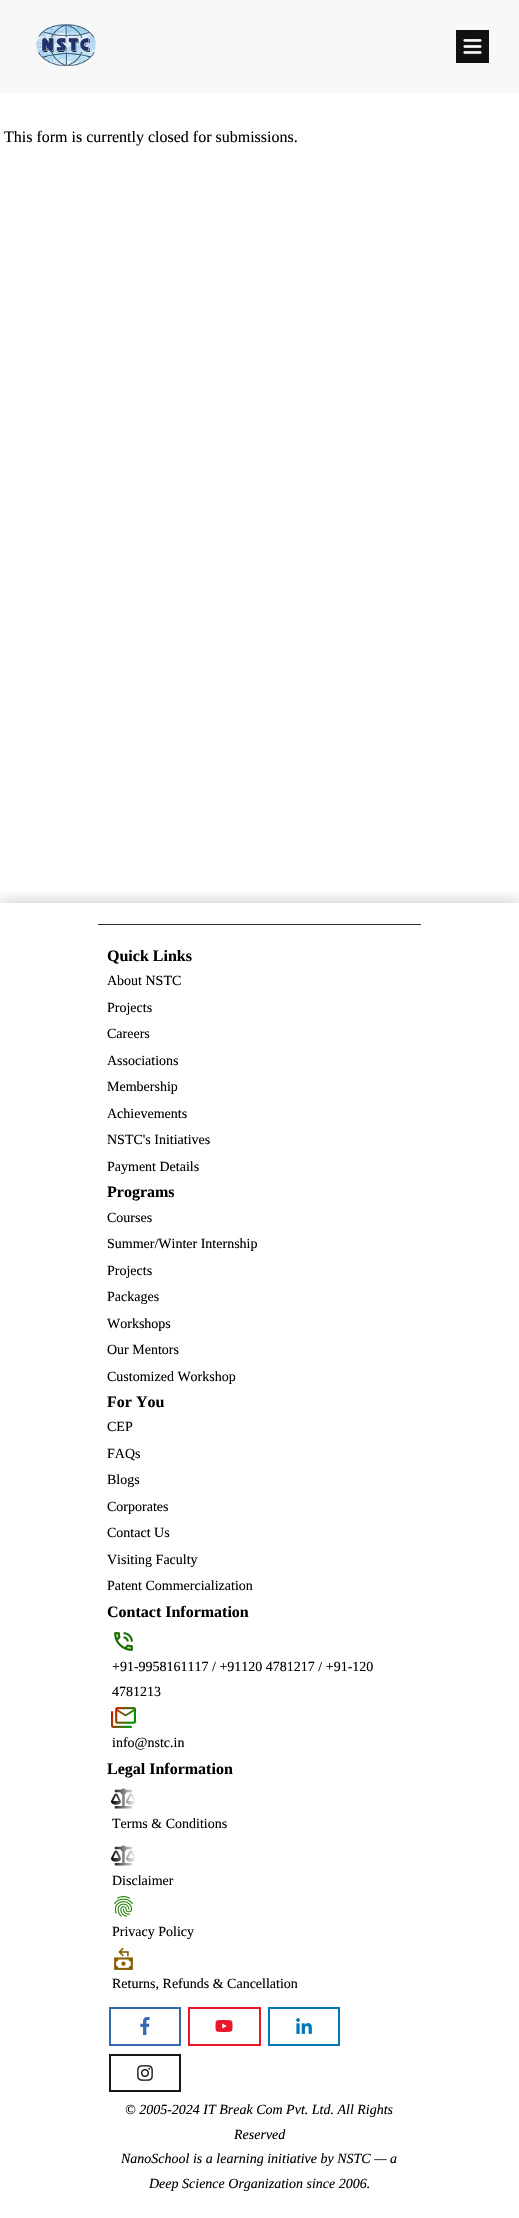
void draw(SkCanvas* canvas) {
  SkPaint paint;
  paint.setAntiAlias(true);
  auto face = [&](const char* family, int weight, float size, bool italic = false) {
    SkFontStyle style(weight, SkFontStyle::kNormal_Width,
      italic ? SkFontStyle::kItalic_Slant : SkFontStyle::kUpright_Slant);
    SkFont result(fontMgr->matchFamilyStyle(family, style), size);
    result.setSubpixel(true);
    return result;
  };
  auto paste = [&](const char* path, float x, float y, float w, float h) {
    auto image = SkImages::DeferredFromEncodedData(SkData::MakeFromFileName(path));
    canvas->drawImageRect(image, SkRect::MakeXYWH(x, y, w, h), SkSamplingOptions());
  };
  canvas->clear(0xffffffff);
  paint.setColor(0xfff8f8f8);
  canvas->drawRect(SkRect::MakeXYWH(0, 0, 519, 93), paint);
  paste("img/1.png", 36, 24, 60, 42);
  paste("img/2.png", 456, 30, 33, 33);
  canvas->save();
  canvas->clipRect(SkRect::MakeXYWH(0, 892, 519, 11));
  paint.setColor(0x26000000);
  paint.setMaskFilter(SkMaskFilter::MakeBlur(kNormal_SkBlurStyle, 6));
  canvas->drawRect(SkRect::MakeXYWH(0, 899, 519, 1315), paint);
  paint.setMaskFilter(nullptr);
  canvas->restore();
  paint.setColor(0xff2f2f2f);
  canvas->drawRect(SkRect::MakeXYWH(98, 924, 323, 1), paint);
  paste("img/3.png", 114, 1632, 19, 19);
  paste("img/4.png", 111, 1707, 25, 21);
  paste("img/5.png", 111, 1788, 25, 21);
  paste("img/5.png", 111, 1845, 25, 21);
  paste("img/6.png", 114, 1896, 19, 21);
  paste("img/7.png", 114, 1947, 19, 23);
  paint.setStroke(true);
  paint.setStrokeWidth(2);
  paint.setColor(0xff3569b4);
  canvas->drawRect(SkRect::MakeXYWH(110, 2008, 70, 37), paint);
  paste("img/8.png", 140, 2017, 10, 18);
  paint.setColor(0xffec162c);
  canvas->drawRect(SkRect::MakeXYWH(189, 2008, 71, 37), paint);
  paste("img/9.png", 215, 2020, 18, 12);
  paint.setColor(0xff0177b5);
  canvas->drawRect(SkRect::MakeXYWH(269, 2008, 70, 37), paint);
  paste("img/10.png", 296, 2018, 16, 16);
  paint.setColor(0xff171716);
  canvas->drawRect(SkRect::MakeXYWH(110, 2055, 70, 36), paint);
  paste("img/11.png", 137, 2065, 16, 16);
  auto f0 = face("Liberation Serif", 400, 16);
  paint.setStroke(false);
  paint.setColor(0xff000000);
  canvas->drawString("This form is currently closed for submissions.", 4, 142, f0, paint);
  auto f1 = face("Liberation Serif", 700, 16);
  canvas->drawString("Quick Links", 107, 961, f1, paint);
  auto f2 = face("Liberation Serif", 400, 14);
  {
    const struct { const char* s; float x, y; } items[] = {
      {"About NSTC", 107, 985},
      {"Projects", 107, 1012},
      {"Careers", 107, 1038},
      {"Associations", 107, 1065},
      {"Membership", 107, 1091},
      {"Achievements", 107, 1118},
      {"NSTC's Initiatives", 107, 1144},
      {"Payment Details", 107, 1171},
    };
    for (auto [s, x, y] : items) {
      canvas->drawString(s, x, y, f2, paint);
    }
  }
  canvas->drawString("Programs", 107, 1197, f1, paint);
  {
    const struct { const char* s; float x, y; } items[] = {
      {"Courses", 107, 1222},
      {"Summer/Winter Internship", 107, 1248},
      {"Projects", 107, 1275},
      {"Packages", 107, 1301},
      {"Workshops", 107, 1328},
      {"Our Mentors", 107, 1354},
      {"Customized Workshop", 107, 1381},
    };
    for (auto [s, x, y] : items) {
      canvas->drawString(s, x, y, f2, paint);
    }
  }
  canvas->drawString("For You", 107, 1407, f1, paint);
  {
    const struct { const char* s; float x, y; } items[] = {
      {"CEP", 107, 1431},
      {"FAQs", 107, 1458},
      {"Blogs", 107, 1484},
      {"Corporates", 107, 1511},
      {"Contact Us", 107, 1537},
      {"Visiting Faculty", 107, 1564},
      {"Patent Commercialization", 107, 1590},
    };
    for (auto [s, x, y] : items) {
      canvas->drawString(s, x, y, f2, paint);
    }
  }
  canvas->drawString("Contact Information", 107, 1617, f1, paint);
  {
    const struct { const char* s; float x, y; } items[] = {
      {"+91-9958161117 / +91120 4781217 / +91-120", 112, 1671},
      {"4781213", 112, 1696},
      {"info@nstc.in", 112, 1747},
    };
    for (auto [s, x, y] : items) {
      canvas->drawString(s, x, y, f2, paint);
    }
  }
  canvas->drawString("Legal Information", 107, 1774, f1, paint);
  {
    const struct { const char* s; float x, y; } items[] = {
      {"Terms & Conditions", 112, 1828},
      {"Disclaimer", 112, 1885},
      {"Privacy Policy", 112, 1936},
      {"Returns, Refunds & Cancellation", 112, 1988},
    };
    for (auto [s, x, y] : items) {
      canvas->drawString(s, x, y, f2, paint);
    }
  }
  auto f3 = face("Liberation Serif", 400, 14, true);
  {
    const struct { const char* s; float x, y; } items[] = {
      {"© 2005-2024 IT Break Com Pvt. Ltd. All Rights", 125, 2114},
      {"Reserved", 234, 2139},
      {"NanoSchool is a learning initiative by NSTC — a", 121, 2163},
      {"Deep Science Organization since 2006.", 149, 2188},
    };
    for (auto [s, x, y] : items) {
      canvas->drawString(s, x, y, f3, paint);
    }
  }
}
